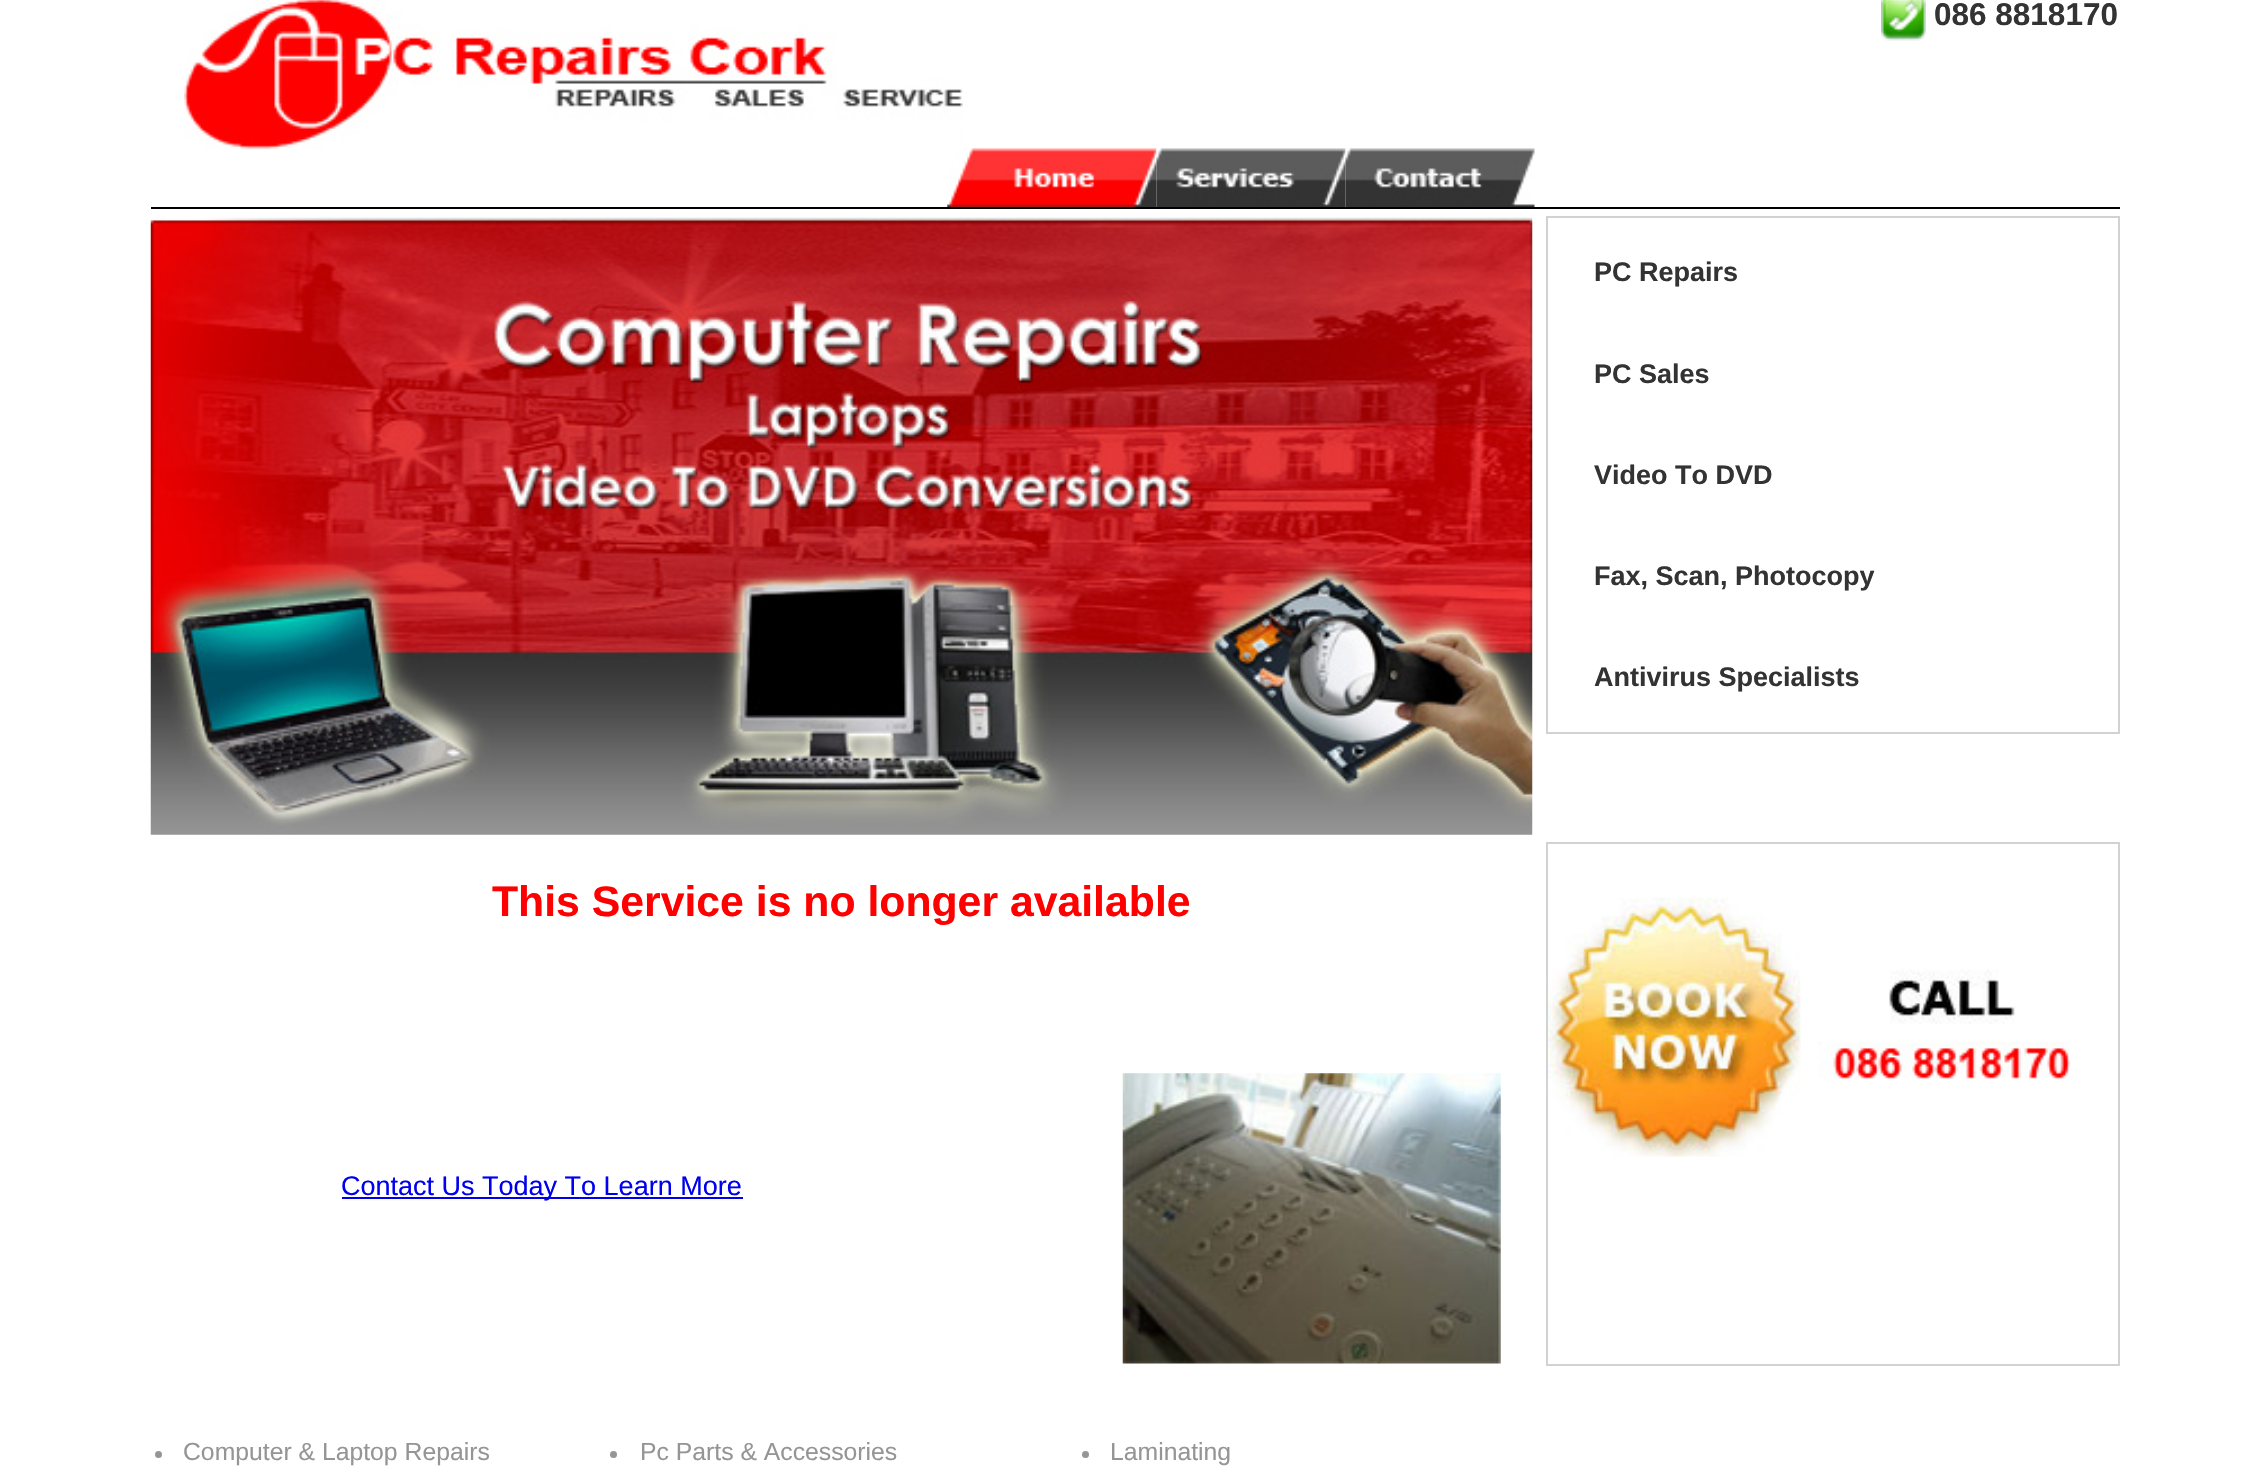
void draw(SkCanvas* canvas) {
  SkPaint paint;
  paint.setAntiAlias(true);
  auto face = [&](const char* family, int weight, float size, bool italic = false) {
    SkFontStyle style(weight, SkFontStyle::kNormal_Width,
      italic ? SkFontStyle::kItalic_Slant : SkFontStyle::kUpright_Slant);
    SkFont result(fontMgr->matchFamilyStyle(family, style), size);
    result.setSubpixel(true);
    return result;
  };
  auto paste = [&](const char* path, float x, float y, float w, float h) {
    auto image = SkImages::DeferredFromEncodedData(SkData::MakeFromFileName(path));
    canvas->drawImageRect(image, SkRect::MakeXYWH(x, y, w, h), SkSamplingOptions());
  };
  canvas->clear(0xffffffff);
  paint.setColor(0xff000000);
  canvas->drawRect(SkRect::MakeXYWH(151, 207, 1969, 2), paint);
  paste("img/1.png", 184, 0, 779, 150);
  paste("img/2.png", 947, 148, 210, 59);
  paste("img/3.png", 1156, 148, 190, 59);
  paste("img/4.png", 1345, 148, 190, 59);
  paste("img/5.png", 1881, 0, 45, 41);
  paste("img/6.png", 150, 216, 1383, 619);
  paint.setStroke(true);
  paint.setStrokeWidth(2);
  paint.setColor(0xffd2d2d2);
  canvas->drawRect(SkRect::MakeXYWH(1547, 217, 572, 516), paint);
  paint.setStroke(false);
  paint.setColor(0xff0000ee);
  canvas->drawRect(SkRect::MakeXYWH(342, 1197, 401, 2), paint);
  paste("img/7.png", 1122, 1073, 379, 291);
  paint.setStroke(true);
  paint.setColor(0xffd2d2d2);
  canvas->drawRect(SkRect::MakeXYWH(1547, 843, 572, 522), paint);
  paste("img/8.png", 1548, 897, 523, 260);
  paint.setStroke(false);
  paint.setColor(0xff959595);
  canvas->drawCircle(158.5f, 1454.5f, 3.5f, paint);
  canvas->drawCircle(613.5f, 1454.5f, 3.5f, paint);
  canvas->drawCircle(1085.5f, 1454.5f, 3.5f, paint);
  auto f0 = face("Liberation Sans", 700, 31.5f);
  paint.setColor(0xff333333);
  canvas->drawString("086 8818170", 1934, 25, f0, paint);
  auto f1 = face("Liberation Sans", 700, 27);
  {
    const struct { const char* s; float x, y; } items[] = {
      {"PC Repairs", 1594, 281},
      {"PC Sales", 1594, 383},
      {"Video To DVD", 1594, 484},
      {"Fax, Scan, Photocopy", 1594, 585},
      {"Antivirus Specialists", 1594, 686},
    };
    for (auto [s, x, y] : items) {
      canvas->drawString(s, x, y, f1, paint);
    }
  }
  auto f2 = face("Liberation Sans", 700, 42.75f);
  paint.setColor(0xffff0000);
  canvas->drawString("This Service is no longer available", 492, 916, f2, paint);
  auto f3 = face("Liberation Sans", 400, 27);
  paint.setColor(0xff0000ee);
  canvas->drawString("Contact Us Today To Learn More", 341, 1195, f3, paint);
  auto f4 = face("Liberation Sans", 400, 24.75f);
  paint.setColor(0xff959595);
  {
    const struct { const char* s; float x, y; } items[] = {
      {"Computer & Laptop Repairs", 183, 1460},
      {"Pc Parts & Accessories", 640, 1460},
      {"Laminating", 1110, 1460},
    };
    for (auto [s, x, y] : items) {
      canvas->drawString(s, x, y, f4, paint);
    }
  }
}
